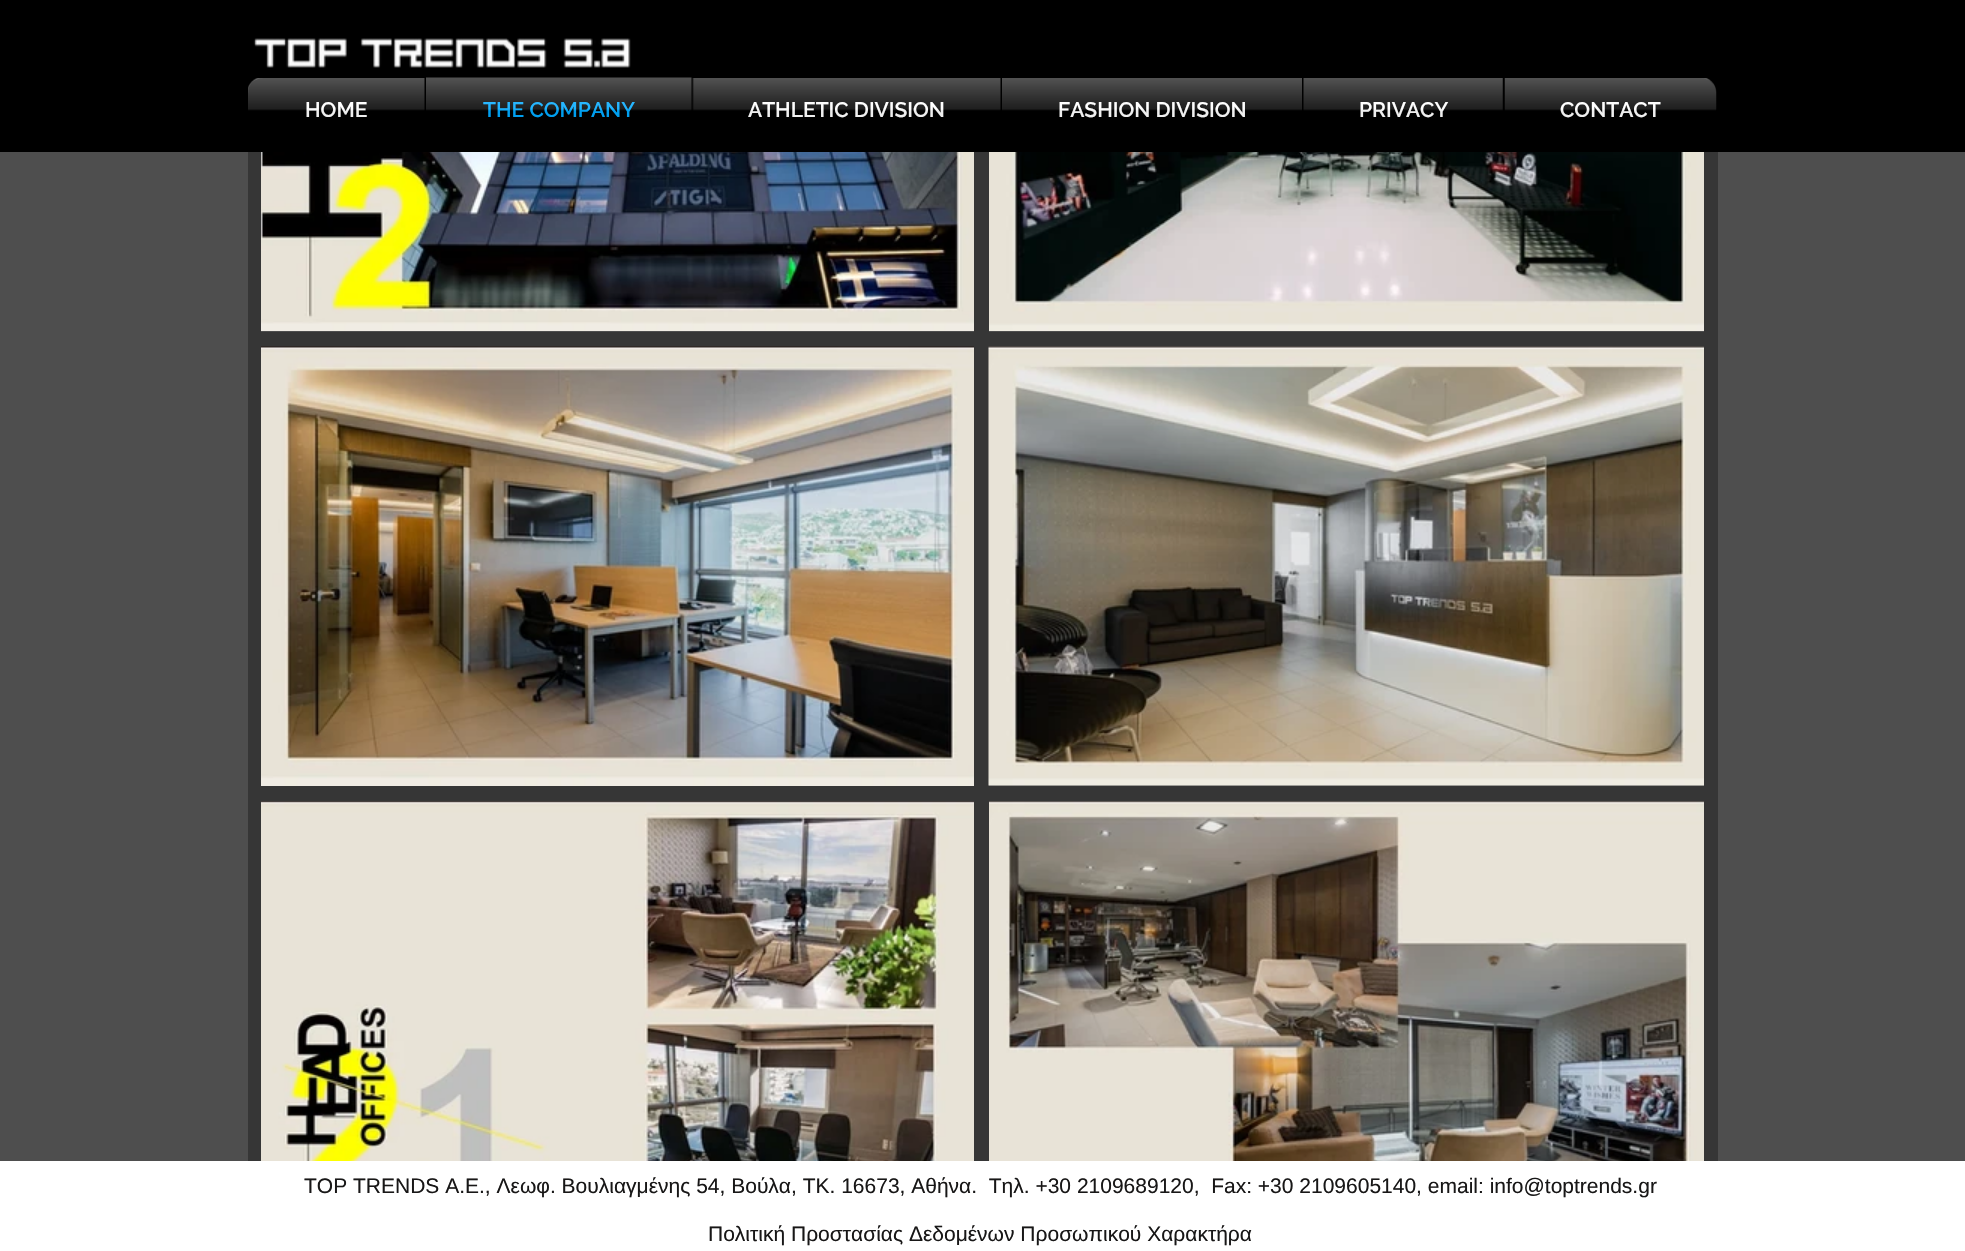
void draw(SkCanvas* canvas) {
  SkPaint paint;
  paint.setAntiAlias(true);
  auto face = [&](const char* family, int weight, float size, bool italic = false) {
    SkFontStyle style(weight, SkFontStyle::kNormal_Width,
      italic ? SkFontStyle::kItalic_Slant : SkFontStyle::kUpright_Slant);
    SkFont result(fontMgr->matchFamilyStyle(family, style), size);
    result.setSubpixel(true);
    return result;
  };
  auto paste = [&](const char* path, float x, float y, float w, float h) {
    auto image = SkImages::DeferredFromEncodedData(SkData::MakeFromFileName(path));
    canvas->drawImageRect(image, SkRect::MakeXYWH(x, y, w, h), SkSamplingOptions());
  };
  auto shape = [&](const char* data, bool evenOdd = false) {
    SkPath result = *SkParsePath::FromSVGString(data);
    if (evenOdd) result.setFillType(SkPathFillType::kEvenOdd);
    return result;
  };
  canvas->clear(0xff4e4e4e);
  paint.setColor(0xff000000);
  canvas->drawRect(SkRect::MakeXYWH(0, 0, 1965, 152), paint);
  paste("img/1.png", 253, 38, 378, 30);
  paste("img/2.png", 248, 78, 1469, 32);
  canvas->drawPath(shape("M263 78H425V143H248V93C248 84.5 254.5 78 263 78Z"), paint);
  canvas->drawRect(SkRect::MakeXYWH(425, 78, 1078, 32), paint);
  canvas->drawPath(shape("M1503 78H1701C1709.5 78 1716 84.5 1716 93V143H1503Z"), paint);
  paint.setColor(0xff363636);
  canvas->drawRect(SkRect::MakeXYWH(248, 152, 1470, 1009), paint);
  paint.setColor(0xff4e4e4e);
  canvas->drawRect(SkRect::MakeXYWH(261, 331, 713, 1), paint);
  paste("img/9.png", 261, 152, 713, 179);
  canvas->drawRect(SkRect::MakeXYWH(989, 331, 715, 1), paint);
  paste("img/10.png", 989, 152, 715, 179);
  paste("img/11.png", 261, 346, 713, 440);
  canvas->drawRect(SkRect::MakeXYWH(989, 785, 715, 1), paint);
  paste("img/12.png", 988, 346, 716, 440);
  paste("img/13.png", 261, 801, 713, 360);
  paste("img/14.png", 989, 801, 715, 360);
  paint.setColor(0xffffffff);
  canvas->drawRect(SkRect::MakeXYWH(0, 1161, 1965, 90), paint);
  auto f0 = face("Raleway", 600, 21);
  canvas->drawString("HOME", 305, 117, f0, paint);
  paste("img/3.png", 248, 78, 177, 39);
  paint.setColor(0xff00a9ff);
  canvas->drawString("THE COMPANY", 483, 117, f0, paint);
  paste("img/4.png", 426, 77, 266, 40);
  paint.setColor(0xffffffff);
  canvas->drawString("ATHLETIC DIVISION", 748, 117, f0, paint);
  paste("img/5.png", 692, 78, 309, 39);
  canvas->drawString("FASHION DIVISION", 1058, 117, f0, paint);
  paste("img/6.png", 1002, 78, 300, 39);
  canvas->drawString("PRIVACY", 1359, 117, f0, paint);
  paste("img/7.png", 1303, 78, 200, 39);
  canvas->drawString("CONTACT", 1560, 117, f0, paint);
  paste("img/8.png", 1504, 78, 212, 39);
  auto f1 = face("Liberation Sans", 400, 21);
  paint.setColor(0xff181717);
  canvas->drawString("TOP TRENDS Α.Ε., Λεωφ. Βουλιαγμένης 54, Βούλα, TK. 16673, Αθήνα.  Τηλ. +30 2109689120,  Fax: +30 2109605140, email: info@toptrends.gr", 304, 1193, f1, paint);
  canvas->drawString("Πολιτική Προστασίας Δεδομένων Προσωπικού Χαρακτήρα", 708, 1241, f1, paint);
}
